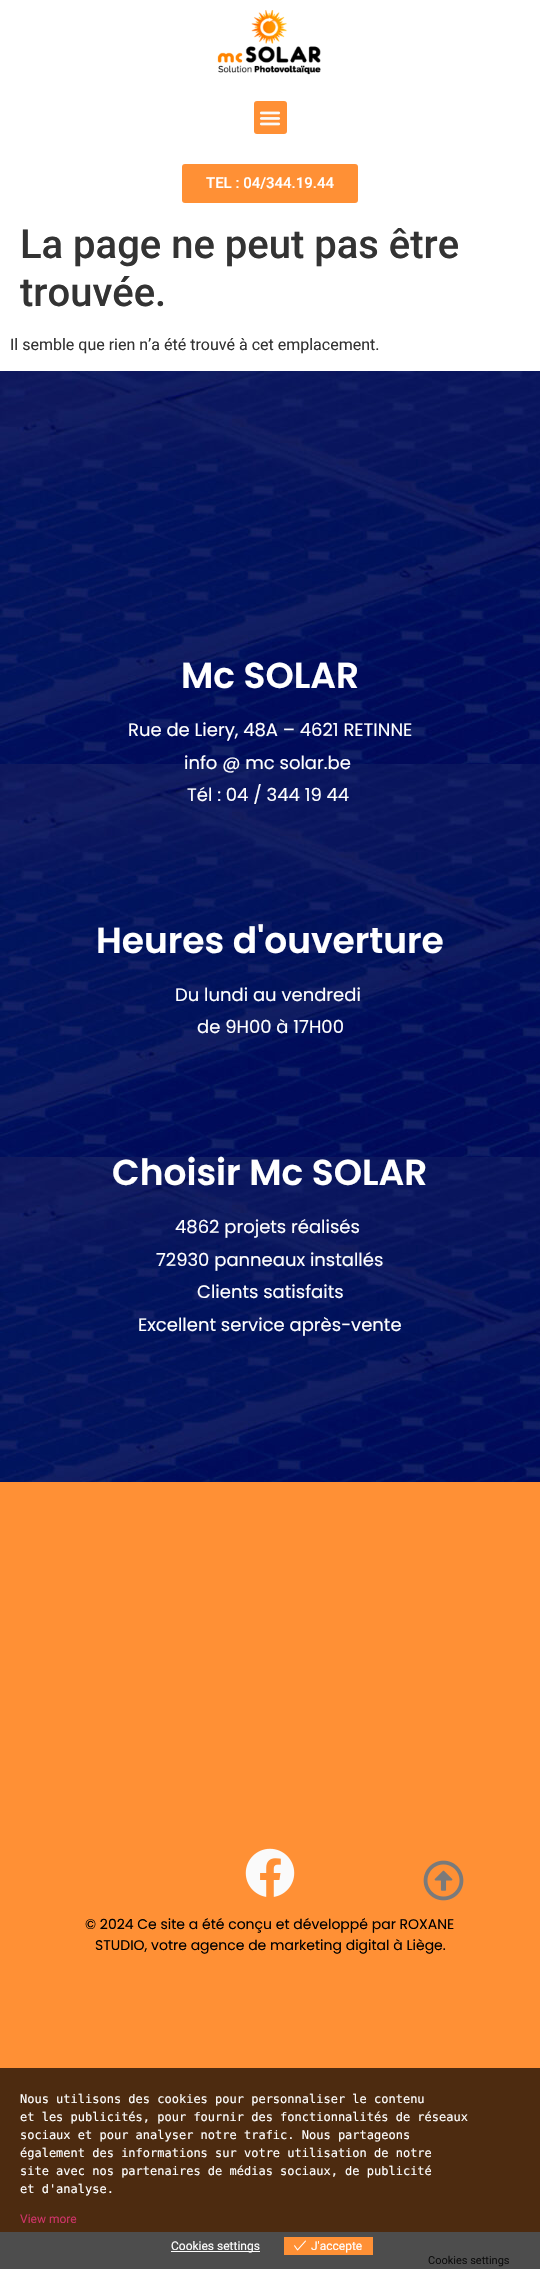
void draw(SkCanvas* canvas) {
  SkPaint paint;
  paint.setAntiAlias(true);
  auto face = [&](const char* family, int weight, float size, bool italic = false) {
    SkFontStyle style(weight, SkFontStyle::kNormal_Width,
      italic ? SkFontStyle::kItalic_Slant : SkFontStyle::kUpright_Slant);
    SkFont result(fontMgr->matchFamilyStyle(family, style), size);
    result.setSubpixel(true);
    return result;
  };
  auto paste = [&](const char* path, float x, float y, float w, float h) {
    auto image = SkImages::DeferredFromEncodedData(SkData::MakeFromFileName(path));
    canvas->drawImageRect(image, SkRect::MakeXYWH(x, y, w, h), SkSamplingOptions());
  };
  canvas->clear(0xffffffff);
  paint.setColor(0xff4d4d4d);
  canvas->drawRect(SkRect::MakeXYWH(0, 2232, 540, 37), paint);
  paste("img/1.png", 217, 10, 104, 65);
  paint.setColor(0xffff9035);
  canvas->drawRoundRect(SkRect::MakeXYWH(254, 101, 33, 33), 3, 3, paint);
  paste("img/2.png", 259, 111, 22, 15);
  canvas->drawRoundRect(SkRect::MakeXYWH(182, 164, 176, 39), 3, 3, paint);
  paste("img/3.png", 0, 371, 540, 1111);
  canvas->drawRect(SkRect::MakeXYWH(0, 1482, 540, 586), paint);
  paint.setColor(0xff4d2b10);
  canvas->drawRect(SkRect::MakeXYWH(0, 2068, 540, 164), paint);
  paste("img/4.png", 245, 1848, 50, 49);
  paste("img/5.png", 423, 1860, 41, 41);
  paint.setColor(0xffffffff);
  canvas->drawRect(SkRect::MakeXYWH(171, 2251, 89, 1), paint);
  paint.setColor(0xffff9035);
  canvas->drawRect(SkRect::MakeXYWH(284, 2237, 89, 18), paint);
  paste("img/6.png", 294, 2240, 12, 11);
  auto f0 = face("Roboto", 500, 15);
  paint.setColor(0xffffffff);
  canvas->drawString("TEL : 04/344.19.44", 206, 188, f0, paint);
  auto f1 = face("Roboto", 500, 40);
  paint.setColor(0xff333333);
  canvas->drawString("La page ne peut pas être", 20, 258, f1, paint);
  canvas->drawString("trouvée.", 20, 306, f1, paint);
  auto f2 = face("Roboto", 400, 16);
  canvas->drawString("Il semble que rien n’a été trouvé à cet emplacement.", 10, 350, f2, paint);
  auto f3 = face("Poppins", 600, 36);
  paint.setColor(0xffffffff);
  canvas->drawString("Mc SOLAR", 181, 688, f3, paint);
  auto f4 = face("Poppins", 400, 18);
  {
    const struct { const char* s; float x, y; } items[] = {
      {"Rue de Liery, 48A – 4621 RETINNE", 128, 736},
      {"info @ mc solar.be", 184, 769},
      {"Tél : 04 / 344 19 44", 187, 801},
    };
    for (auto [s, x, y] : items) {
      canvas->drawString(s, x, y, f4, paint);
    }
  }
  canvas->drawString("Heures d'ouverture", 96, 953, f3, paint);
  canvas->drawString("Du lundi au vendredi", 175, 1001, f4, paint);
  canvas->drawString("de 9H00 à 17H00", 197, 1033, f4, paint);
  canvas->drawString("Choisir Mc SOLAR", 112, 1185, f3, paint);
  {
    const struct { const char* s; float x, y; } items[] = {
      {"4862 projets réalisés", 175, 1233},
      {"72930 panneaux installés", 156, 1266},
      {"Clients satisfaits", 197, 1298},
      {"Excellent service après-vente", 138, 1331},
    };
    for (auto [s, x, y] : items) {
      canvas->drawString(s, x, y, f4, paint);
    }
  }
  auto f5 = face("Poppins", 400, 14);
  paint.setColor(0xff000000);
  canvas->drawString("© 2024 Ce site a été conçu et développé par ROXANE", 85, 1929, f5, paint);
  canvas->drawString("STUDIO, votre agence de marketing digital à Liège.", 95, 1950, f5, paint);
  auto f6 = face("DejaVu Sans Mono", 400, 12);
  paint.setColor(0xffffffff);
  {
    const struct { const char* s; float x, y; } items[] = {
      {"Nous utilisons des cookies pour personnaliser le contenu", 20, 2103},
      {"et les publicités, pour fournir des fonctionnalités de réseaux", 20, 2121},
      {"sociaux et pour analyser notre trafic. Nous partageons", 20, 2139},
      {"également des informations sur votre utilisation de notre", 20, 2157},
      {"site avec nos partenaires de médias sociaux, de publicité", 20, 2175},
      {"et d'analyse.", 20, 2193},
    };
    for (auto [s, x, y] : items) {
      canvas->drawString(s, x, y, f6, paint);
    }
  }
  auto f7 = face("Roboto", 400, 12);
  paint.setColor(0xffcc3366);
  canvas->drawString("View more", 20, 2223, f7, paint);
  paint.setColor(0xffffffff);
  canvas->drawString("Cookies settings", 171, 2250, f7, paint);
  canvas->drawString("J'accepte", 311, 2250, f7, paint);
  auto f8 = face("Roboto", 400, 11);
  paint.setColor(0xff0f0f0f);
  canvas->drawString("Cookies settings", 428, 2264, f8, paint);
}
